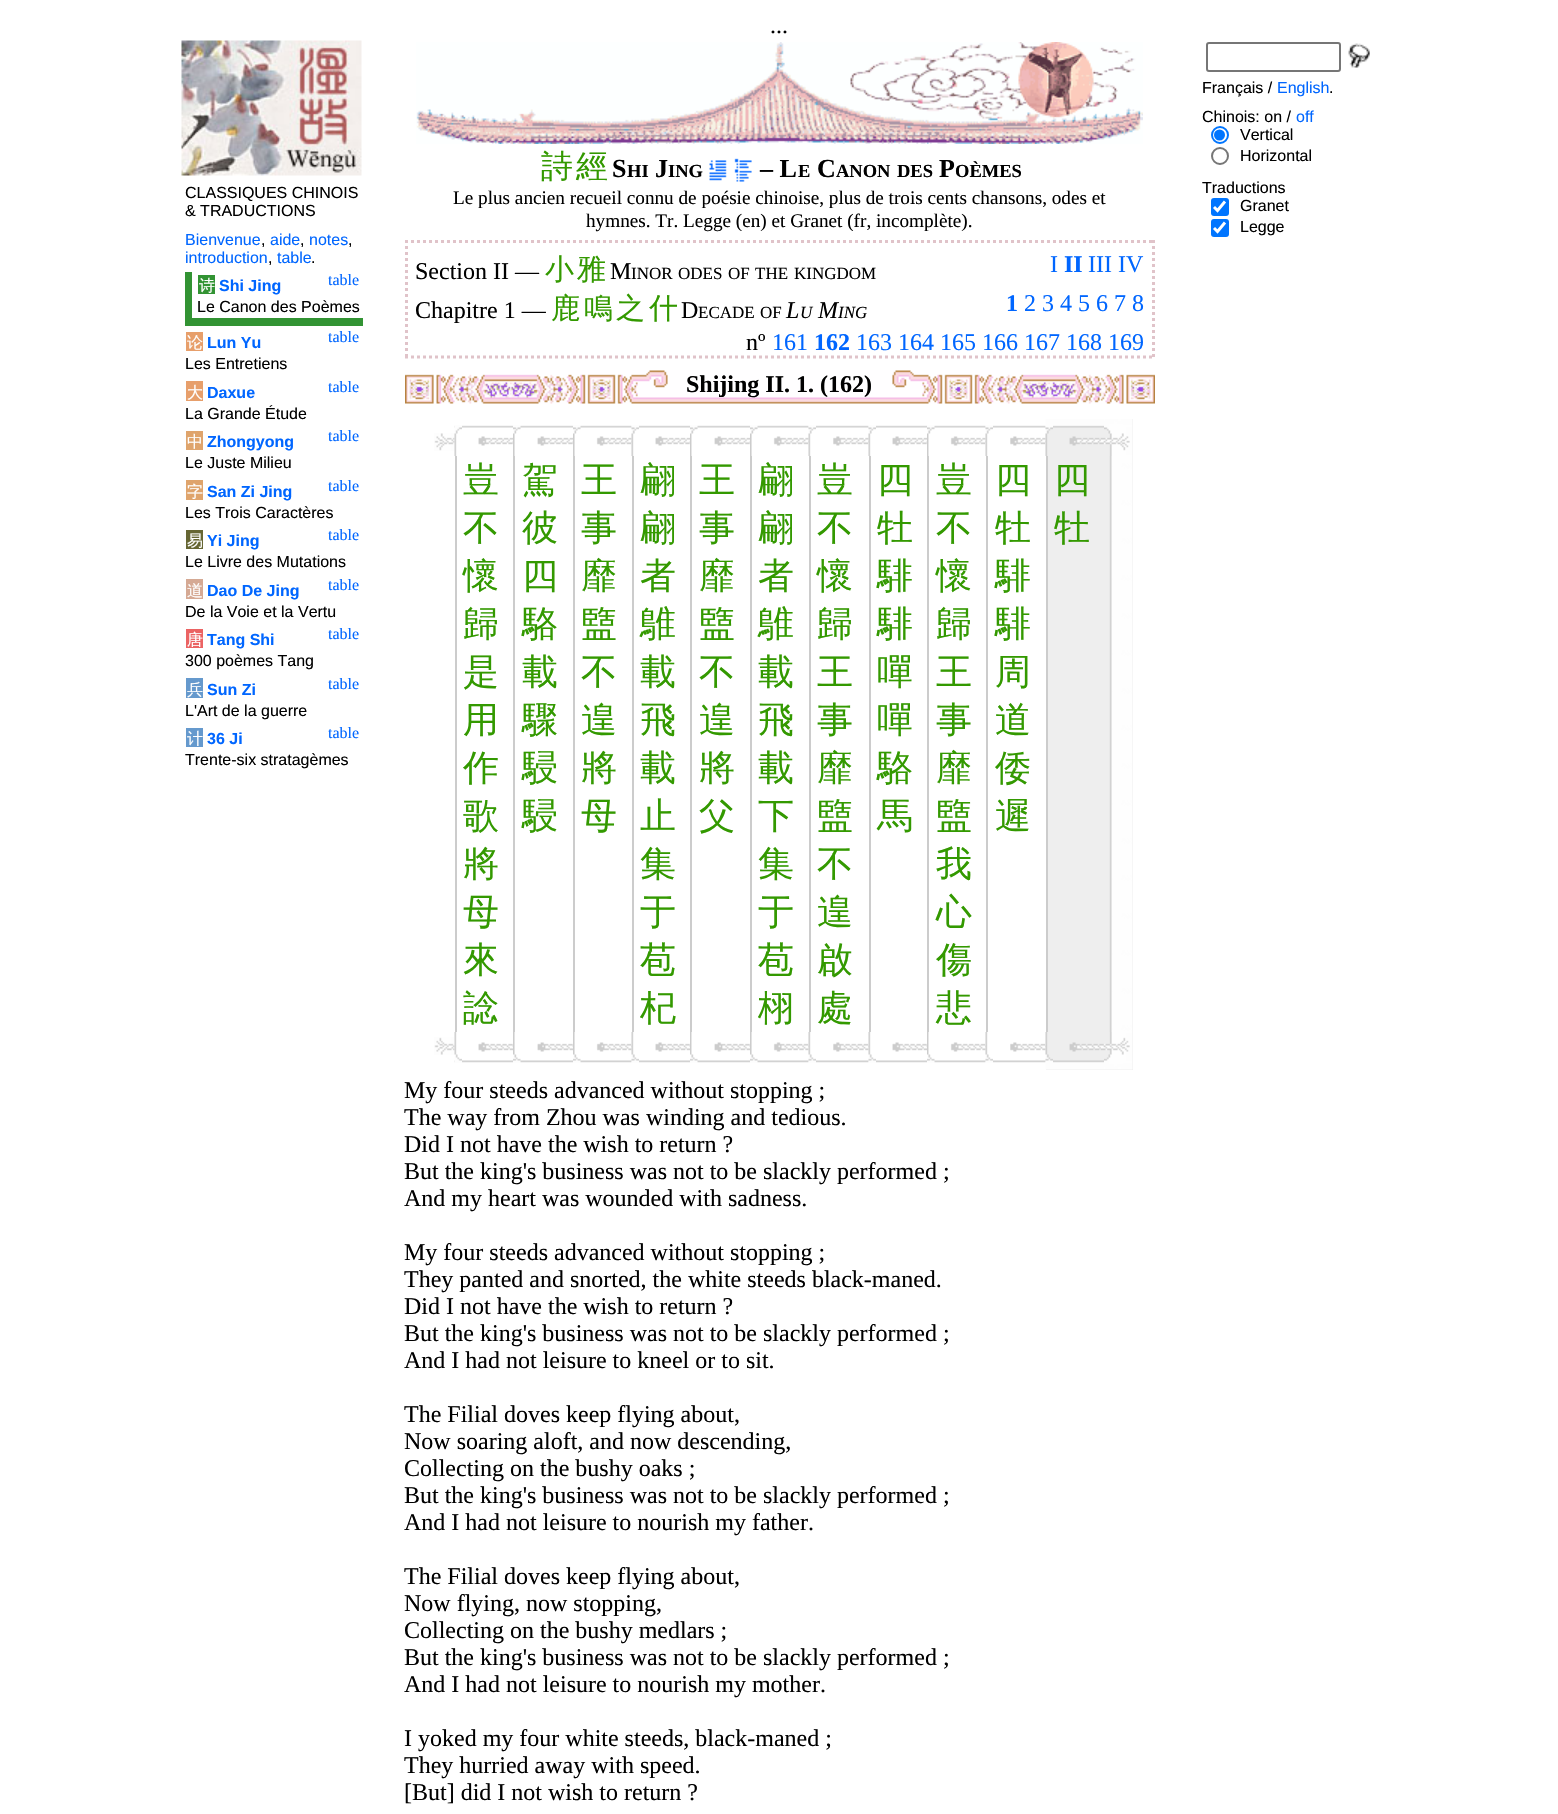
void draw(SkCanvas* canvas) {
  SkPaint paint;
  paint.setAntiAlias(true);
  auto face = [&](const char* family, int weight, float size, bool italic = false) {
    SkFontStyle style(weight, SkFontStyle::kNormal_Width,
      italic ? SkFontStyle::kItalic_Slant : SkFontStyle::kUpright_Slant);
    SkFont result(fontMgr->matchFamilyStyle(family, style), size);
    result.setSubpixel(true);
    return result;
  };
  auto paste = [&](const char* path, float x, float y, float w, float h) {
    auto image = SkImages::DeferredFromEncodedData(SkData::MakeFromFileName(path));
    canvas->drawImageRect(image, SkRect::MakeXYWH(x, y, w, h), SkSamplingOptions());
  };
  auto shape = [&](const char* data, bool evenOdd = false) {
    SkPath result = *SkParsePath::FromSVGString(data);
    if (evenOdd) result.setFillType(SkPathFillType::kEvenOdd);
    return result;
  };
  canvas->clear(0xffffffff);
  paste("img/1.png", 181, 40, 181, 136);
  {
    const struct { float x, y, w, h; SkColor color; } items[] = {
      {185, 318, 178, 8, 0xff329333},
      {185, 272, 7, 54, 0xff329333},
      {198, 275, 17, 19, 0xff329333},
      {186, 332, 17, 19, 0xffe79f6b},
      {186, 381, 17, 20, 0xffe79f6b},
      {186, 431, 17, 19, 0xffdfa46c},
      {186, 480, 17, 20, 0xffdfa46c},
      {186, 530, 17, 19, 0xff666633},
      {186, 579, 17, 20, 0xffd5a994},
      {186, 629, 17, 19, 0xffeb6363},
      {186, 678, 17, 20, 0xff6599cd},
      {186, 728, 17, 19, 0xff6599cd},
    };
    for (auto [x, y, w, h, color] : items) {
      paint.setColor(color);
      canvas->drawRect(SkRect::MakeXYWH(x, y, w, h), paint);
    }
  }
  paste("img/2.png", 416, 42, 727, 102);
  paste("img/3.png", 709, 160, 18, 21);
  paste("img/4.png", 734, 158, 18, 24);
  paint.setStroke(true);
  paint.setStrokeWidth(3);
  paint.setColor(0xffe0c3c9);
  paint.setPathEffect(SkDashPathEffect::Make({{3, 3}}, 0));
  canvas->drawPath(shape("M405 241.5H1155"), paint);
  paint.setPathEffect(nullptr);
  paint.setPathEffect(SkDashPathEffect::Make({{3, 3}}, 0));
  canvas->drawPath(shape("M1153.5 240V358.5"), paint);
  paint.setPathEffect(nullptr);
  paint.setPathEffect(SkDashPathEffect::Make({{3, 3}}, 0));
  canvas->drawPath(shape("M405 357H1155"), paint);
  paint.setPathEffect(nullptr);
  paint.setPathEffect(SkDashPathEffect::Make({{3, 3}}, 0));
  canvas->drawPath(shape("M406.5 240V358.5"), paint);
  paint.setPathEffect(nullptr);
  paste("img/5.png", 405, 370, 750, 34);
  paste("img/6.png", 434, 433, 21, 18);
  paste("img/7.png", 454, 425, 59, 21);
  paste("img/8.png", 454, 425, 8, 31);
  paste("img/9.png", 520, 425, 53, 21);
  paste("img/10.png", 513, 425, 8, 31);
  paste("img/11.png", 580, 425, 52, 21);
  paste("img/12.png", 573, 425, 8, 31);
  paste("img/13.png", 631, 425, 59, 21);
  paste("img/14.png", 631, 425, 8, 31);
  paste("img/9.png", 697, 425, 53, 21);
  paste("img/15.png", 690, 425, 8, 31);
  paste("img/11.png", 757, 425, 52, 21);
  paste("img/12.png", 750, 425, 8, 31);
  paste("img/16.png", 808, 425, 61, 21);
  paste("img/17.png", 808, 425, 8, 31);
  paste("img/13.png", 868, 425, 59, 21);
  paste("img/17.png", 868, 425, 8, 31);
  paste("img/11.png", 934, 425, 52, 21);
  paste("img/15.png", 927, 425, 8, 31);
  paste("img/16.png", 985, 425, 61, 21);
  paste("img/17.png", 985, 425, 8, 31);
  paint.setStroke(false);
  paint.setColor(0xffeeeeee);
  canvas->drawRect(SkRect::MakeXYWH(1046, 427, 58, 29), paint);
  paste("img/18.png", 1045, 419, 59, 27);
  paste("img/19.png", 1045, 425, 8, 31);
  canvas->drawRect(SkRect::MakeXYWH(1104, 419, 29, 37), paint);
  paste("img/20.png", 1104, 419, 29, 37);
  {
    const struct { float x, y, w, h; SkColor color; } items[] = {
      {455, 456, 2, 576, 0xffcccccc},
      {513, 456, 2, 576, 0xffcccccc},
      {573, 456, 2, 576, 0xffcccccc},
      {632, 456, 2, 576, 0xffcccccc},
      {690, 456, 2, 576, 0xffcccccc},
      {750, 456, 2, 576, 0xffcccccc},
      {809, 456, 2, 576, 0xffcccccc},
      {869, 456, 2, 576, 0xffcccccc},
      {927, 456, 2, 576, 0xffcccccc},
      {986, 456, 2, 576, 0xffcccccc},
      {1048, 456, 85, 576, 0xffeeeeee},
      {1046, 456, 2, 576, 0xffcccccc},
    };
    for (auto [x, y, w, h, color] : items) {
      paint.setColor(color);
      canvas->drawRect(SkRect::MakeXYWH(x, y, w, h), paint);
    }
  }
  paste("img/21.png", 1109, 456, 24, 576);
  paste("img/35.png", 434, 1037, 21, 18);
  paste("img/22.png", 454, 1042, 59, 21);
  paste("img/23.png", 454, 1032, 8, 31);
  paste("img/24.png", 520, 1042, 53, 21);
  paste("img/25.png", 513, 1032, 8, 31);
  paste("img/26.png", 580, 1042, 52, 21);
  paste("img/27.png", 573, 1032, 8, 31);
  paste("img/28.png", 631, 1042, 59, 21);
  paste("img/29.png", 631, 1032, 8, 31);
  paste("img/24.png", 697, 1042, 53, 21);
  paste("img/30.png", 690, 1032, 8, 31);
  paste("img/26.png", 757, 1042, 52, 21);
  paste("img/27.png", 750, 1032, 8, 31);
  paste("img/31.png", 808, 1042, 61, 21);
  paste("img/32.png", 808, 1032, 8, 31);
  paste("img/28.png", 868, 1042, 59, 21);
  paste("img/32.png", 868, 1032, 8, 31);
  paste("img/26.png", 934, 1042, 52, 21);
  paste("img/30.png", 927, 1032, 8, 31);
  paste("img/31.png", 985, 1042, 61, 21);
  paste("img/32.png", 985, 1032, 8, 31);
  paint.setColor(0xffeeeeee);
  canvas->drawRect(SkRect::MakeXYWH(1046, 1032, 87, 38), paint);
  paste("img/33.png", 1045, 1042, 59, 28);
  paste("img/34.png", 1045, 1032, 8, 31);
  paste("img/36.png", 1104, 1032, 29, 38);
  paint.setStroke(true);
  paint.setStrokeWidth(2);
  paint.setColor(0xff767676);
  canvas->drawRoundRect(SkRect::MakeXYWH(1207, 43, 133, 28), 2, 2, paint);
  paste("img/37.png", 1348, 43, 22, 25);
  paint.setColor(0xff0075ff);
  canvas->drawCircle(1220, 135, 8, paint);
  paint.setStroke(false);
  canvas->drawCircle(1219.5f, 135, 5.5f, paint);
  paint.setStroke(true);
  paint.setColor(0xff767676);
  canvas->drawCircle(1220, 156, 8, paint);
  paint.setStroke(false);
  paint.setColor(0xff0075ff);
  canvas->drawRoundRect(SkRect::MakeXYWH(1211, 198, 18, 18), 3, 3, paint);
  paint.setStroke(true);
  paint.setStrokeWidth(2.9f);
  paint.setColor(0xffffffff);
  canvas->drawPath(shape("M1214 207L1217.5 210.5L1225 201.5"), paint);
  paint.setStroke(false);
  paint.setColor(0xff0075ff);
  canvas->drawRoundRect(SkRect::MakeXYWH(1211, 219, 18, 18), 3, 3, paint);
  paint.setStroke(true);
  paint.setColor(0xffffffff);
  canvas->drawPath(shape("M1214 228L1217.5 231.5L1225 222.5"), paint);
  auto f0 = face("Liberation Serif", 400, 24);
  paint.setStroke(false);
  paint.setColor(0xff000000);
  canvas->drawString("...", 770, 33, f0, paint);
  auto f1 = face("Liberation Sans", 400, 16);
  canvas->drawString("CLASSIQUES CHINOIS", 185, 198, f1, paint);
  canvas->drawString("& TRADUCTIONS", 185, 216, f1, paint);
  paint.setColor(0xff0066ff);
  canvas->drawString("Bienvenue", 185, 245, f1, paint);
  paint.setColor(0xff000000);
  canvas->drawString(",", 261, 245, f1, paint);
  paint.setColor(0xff0066ff);
  canvas->drawString("aide", 270, 245, f1, paint);
  paint.setColor(0xff000000);
  canvas->drawString(",", 300, 245, f1, paint);
  paint.setColor(0xff0066ff);
  canvas->drawString("notes", 309, 245, f1, paint);
  paint.setColor(0xff000000);
  canvas->drawString(",", 348, 245, f1, paint);
  paint.setColor(0xff0066ff);
  canvas->drawString("introduction", 185, 263, f1, paint);
  paint.setColor(0xff000000);
  canvas->drawString(",", 268, 263, f1, paint);
  paint.setColor(0xff0066ff);
  canvas->drawString("table", 277, 263, f1, paint);
  paint.setColor(0xff000000);
  canvas->drawString(".", 311, 263, f1, paint);
  auto f2 = face("Liberation Serif", 400, 16);
  paint.setColor(0xff0066ff);
  canvas->drawString("table", 328, 285, f2, paint);
  auto f3 = face("WenQuanYi Zen Hei", 500, 16);
  paint.setColor(0xffffffff);
  canvas->drawString("诗", 199, 291, f3, paint);
  auto f4 = face("Liberation Sans", 700, 16);
  paint.setColor(0xff0066ff);
  canvas->drawString("Shi Jing", 219, 291, f4, paint);
  paint.setColor(0xff000000);
  canvas->drawString("Le Canon des Poèmes", 197, 312, f1, paint);
  paint.setColor(0xffffffff);
  canvas->drawString("论", 187, 348, f3, paint);
  paint.setColor(0xff0066ff);
  canvas->drawString("Lun Yu", 207, 348, f4, paint);
  paint.setColor(0xff000000);
  canvas->drawString("Les Entretiens", 185, 369, f1, paint);
  paint.setColor(0xff0066ff);
  canvas->drawString("table", 328, 342, f2, paint);
  paint.setColor(0xffffffff);
  canvas->drawString("大", 187, 398, f3, paint);
  paint.setColor(0xff0066ff);
  canvas->drawString("Daxue", 207, 398, f4, paint);
  paint.setColor(0xff000000);
  canvas->drawString("La Grande Étude", 185, 419, f1, paint);
  paint.setColor(0xff0066ff);
  canvas->drawString("table", 328, 392, f2, paint);
  paint.setColor(0xffffffff);
  canvas->drawString("中", 187, 447, f3, paint);
  paint.setColor(0xff0066ff);
  canvas->drawString("Zhongyong", 207, 447, f4, paint);
  paint.setColor(0xff000000);
  canvas->drawString("Le Juste Milieu", 185, 468, f1, paint);
  paint.setColor(0xff0066ff);
  canvas->drawString("table", 328, 441, f2, paint);
  paint.setColor(0xffffffff);
  canvas->drawString("字", 187, 497, f3, paint);
  paint.setColor(0xff0066ff);
  canvas->drawString("San Zi Jing", 207, 497, f4, paint);
  paint.setColor(0xff000000);
  canvas->drawString("Les Trois Caractères", 185, 518, f1, paint);
  paint.setColor(0xff0066ff);
  canvas->drawString("table", 328, 491, f2, paint);
  canvas->drawString("table", 328, 540, f2, paint);
  paint.setColor(0xffffffff);
  canvas->drawString("易", 187, 546, f3, paint);
  paint.setColor(0xff0066ff);
  canvas->drawString("Yi Jing", 207, 546, f4, paint);
  paint.setColor(0xff000000);
  canvas->drawString("Le Livre des Mutations", 185, 567, f1, paint);
  paint.setColor(0xffffffff);
  canvas->drawString("道", 187, 596, f3, paint);
  paint.setColor(0xff0066ff);
  canvas->drawString("Dao De Jing", 207, 596, f4, paint);
  paint.setColor(0xff000000);
  canvas->drawString("De la Voie et la Vertu", 185, 617, f1, paint);
  paint.setColor(0xff0066ff);
  canvas->drawString("table", 328, 590, f2, paint);
  paint.setColor(0xffffffff);
  canvas->drawString("唐", 187, 645, f3, paint);
  paint.setColor(0xff0066ff);
  canvas->drawString("Tang Shi", 207, 645, f4, paint);
  paint.setColor(0xff000000);
  canvas->drawString("300 poèmes Tang", 185, 666, f1, paint);
  paint.setColor(0xff0066ff);
  canvas->drawString("table", 328, 639, f2, paint);
  paint.setColor(0xffffffff);
  canvas->drawString("兵", 187, 695, f3, paint);
  paint.setColor(0xff0066ff);
  canvas->drawString("Sun Zi", 207, 695, f4, paint);
  paint.setColor(0xff000000);
  canvas->drawString("L'Art de la guerre", 185, 716, f1, paint);
  paint.setColor(0xff0066ff);
  canvas->drawString("table", 328, 689, f2, paint);
  canvas->drawString("table", 328, 738, f2, paint);
  paint.setColor(0xffffffff);
  canvas->drawString("计", 187, 744, f3, paint);
  paint.setColor(0xff0066ff);
  canvas->drawString("36 Ji", 207, 744, f4, paint);
  paint.setColor(0xff000000);
  canvas->drawString("Trente-six stratagèmes", 185, 765, f1, paint);
  auto f5 = face("WenQuanYi Zen Hei", 500, 32);
  paint.setColor(0xff339900);
  canvas->drawString("詩", 541, 177, f5, paint);
  canvas->drawString("經", 576, 177, f5, paint);
  auto f6 = face("Liberation Serif", 700, 26);
  paint.setColor(0xff000000);
  canvas->drawString("S", 612, 177, f6, paint);
  auto f7 = face("Liberation Serif", 700, 18.5f);
  canvas->drawString("HI", 627, 177, f7, paint);
  canvas->drawString("J", 655, 177, f6, paint);
  canvas->drawString("ING", 668, 177, f7, paint);
  canvas->drawString("– L", 760, 177, f6, paint);
  canvas->drawString("E", 798, 177, f7, paint);
  canvas->drawString("C", 817, 177, f6, paint);
  canvas->drawString("ANON", 836, 177, f7, paint);
  canvas->drawString("DES", 897, 177, f7, paint);
  canvas->drawString("P", 939, 177, f6, paint);
  canvas->drawString("OÈMES", 955, 177, f7, paint);
  auto f8 = face("Liberation Serif", 400, 19.2f);
  canvas->drawString("Le plus ancien recueil connu de poésie chinoise, plus de trois cents chansons, odes et", 453, 204, f8, paint);
  canvas->drawString("hymnes. Tr. Legge (en) et Granet (fr, incomplète).", 586, 227, f8, paint);
  canvas->drawString("Section II —", 415, 279, f0, paint);
  auto f9 = face("WenQuanYi Zen Hei", 500, 29);
  paint.setColor(0xff339900);
  canvas->drawString("小", 545, 279, f9, paint);
  canvas->drawString("雅", 577, 279, f9, paint);
  paint.setColor(0xff000000);
  canvas->drawString("M", 610, 279, f0, paint);
  auto f10 = face("Liberation Serif", 400, 17);
  {
    const struct { const char* s; float x, y; } items[] = {
      {"INOR", 631, 279},
      {"ODES", 678, 279},
      {"OF", 728, 279},
      {"THE", 755, 279},
      {"KINGDOM", 794, 279},
    };
    for (auto [s, x, y] : items) {
      canvas->drawString(s, x, y, f10, paint);
    }
  }
  paint.setColor(0xff0066ff);
  canvas->drawString("I", 1050, 272, f0, paint);
  auto f11 = face("Liberation Serif", 700, 24);
  canvas->drawString("II", 1064, 272, f11, paint);
  canvas->drawString("III IV", 1088, 272, f0, paint);
  paint.setColor(0xff000000);
  canvas->drawString("Chapitre 1 —", 415, 318, f0, paint);
  paint.setColor(0xff339900);
  {
    const struct { const char* s; float x, y; } items[] = {
      {"鹿", 551, 318},
      {"鳴", 584, 318},
      {"之", 616, 318},
      {"什", 649, 318},
    };
    for (auto [s, x, y] : items) {
      canvas->drawString(s, x, y, f9, paint);
    }
  }
  paint.setColor(0xff000000);
  canvas->drawString("D", 681, 318, f0, paint);
  canvas->drawString("ECADE", 698, 318, f10, paint);
  canvas->drawString("OF", 760, 318, f10, paint);
  auto f12 = face("Liberation Serif", 400, 24, true);
  canvas->drawString("L", 786, 318, f12, paint);
  auto f13 = face("Liberation Serif", 400, 17, true);
  canvas->drawString("U", 800, 318, f13, paint);
  canvas->drawString("M", 818, 318, f12, paint);
  canvas->drawString("ING", 838, 318, f13, paint);
  paint.setColor(0xff0066ff);
  canvas->drawString("1", 1006, 311, f11, paint);
  canvas->drawString("2 3 4 5 6 7 8", 1024, 311, f0, paint);
  paint.setColor(0xff000000);
  canvas->drawString("nº", 746, 350, f0, paint);
  paint.setColor(0xff0066ff);
  canvas->drawString("161", 772, 350, f0, paint);
  canvas->drawString("162", 814, 350, f11, paint);
  canvas->drawString("163 164 165 166 167 168 169", 856, 350, f0, paint);
  paint.setColor(0xff000000);
  canvas->drawString("Shijing II. 1. (162)", 686, 392, f11, paint);
  auto f14 = face("WenQuanYi Zen Hei", 500, 36);
  paint.setColor(0xff339900);
  {
    const struct { const char* s; float x, y; } items[] = {
      {"豈", 463, 492},
      {"不", 463, 540},
      {"懷", 463, 588},
      {"歸", 463, 636},
      {"是", 463, 684},
      {"用", 463, 732},
      {"作", 463, 780},
      {"歌", 463, 828},
      {"將", 463, 876},
      {"母", 463, 924},
      {"來", 463, 972},
      {"諗", 463, 1020},
      {"駕", 522, 492},
      {"彼", 522, 540},
      {"四", 522, 588},
      {"駱", 522, 636},
      {"載", 522, 684},
      {"驟", 522, 732},
      {"駸", 522, 780},
      {"駸", 522, 828},
      {"王", 581, 492},
      {"事", 581, 540},
      {"靡", 581, 588},
      {"盬", 581, 636},
      {"不", 581, 684},
      {"遑", 581, 732},
      {"將", 581, 780},
      {"母", 581, 828},
      {"翩", 640, 492},
      {"翩", 640, 540},
      {"者", 640, 588},
      {"鵻", 640, 636},
      {"載", 640, 684},
      {"飛", 640, 732},
      {"載", 640, 780},
      {"止", 640, 828},
      {"集", 640, 876},
      {"于", 640, 924},
      {"苞", 640, 972},
      {"杞", 640, 1020},
      {"王", 699, 492},
      {"事", 699, 540},
      {"靡", 699, 588},
      {"盬", 699, 636},
      {"不", 699, 684},
      {"遑", 699, 732},
      {"將", 699, 780},
      {"父", 699, 828},
      {"翩", 758, 492},
      {"翩", 758, 540},
      {"者", 758, 588},
      {"鵻", 758, 636},
      {"載", 758, 684},
      {"飛", 758, 732},
      {"載", 758, 780},
      {"下", 758, 828},
      {"集", 758, 876},
      {"于", 758, 924},
      {"苞", 758, 972},
      {"栩", 758, 1020},
      {"豈", 817, 492},
      {"不", 817, 540},
      {"懷", 817, 588},
      {"歸", 817, 636},
      {"王", 817, 684},
      {"事", 817, 732},
      {"靡", 817, 780},
      {"盬", 817, 828},
      {"不", 817, 876},
      {"遑", 817, 924},
      {"啟", 817, 972},
      {"處", 817, 1020},
      {"四", 877, 492},
      {"牡", 877, 540},
      {"騑", 877, 588},
      {"騑", 877, 636},
      {"嘽", 877, 684},
      {"嘽", 877, 732},
      {"駱", 877, 780},
      {"馬", 877, 828},
      {"豈", 936, 492},
      {"不", 936, 540},
      {"懷", 936, 588},
      {"歸", 936, 636},
      {"王", 936, 684},
      {"事", 936, 732},
      {"靡", 936, 780},
      {"盬", 936, 828},
      {"我", 936, 876},
      {"心", 936, 924},
      {"傷", 936, 972},
      {"悲", 936, 1020},
      {"四", 995, 492},
      {"牡", 995, 540},
      {"騑", 995, 588},
      {"騑", 995, 636},
      {"周", 995, 684},
      {"道", 995, 732},
      {"倭", 995, 780},
      {"遲", 995, 828},
      {"四", 1054, 492},
      {"牡", 1054, 540},
    };
    for (auto [s, x, y] : items) {
      canvas->drawString(s, x, y, f14, paint);
    }
  }
  paint.setColor(0xff000000);
  {
    const struct { const char* s; float x, y; } items[] = {
      {"My four steeds advanced without stopping ;", 404, 1098},
      {"The way from Zhou was winding and tedious.", 404, 1125},
      {"Did I not have the wish to return ?", 404, 1152},
      {"But the king's business was not to be slackly performed ;", 404, 1179},
      {"And my heart was wounded with sadness.", 404, 1206},
      {"My four steeds advanced without stopping ;", 404, 1260},
      {"They panted and snorted, the white steeds black-maned.", 404, 1287},
      {"Did I not have the wish to return ?", 404, 1314},
      {"But the king's business was not to be slackly performed ;", 404, 1341},
      {"And I had not leisure to kneel or to sit.", 404, 1368},
      {"The Filial doves keep flying about,", 404, 1422},
      {"Now soaring aloft, and now descending,", 404, 1449},
      {"Collecting on the bushy oaks ;", 404, 1476},
      {"But the king's business was not to be slackly performed ;", 404, 1503},
      {"And I had not leisure to nourish my father.", 404, 1530},
      {"The Filial doves keep flying about,", 404, 1584},
      {"Now flying, now stopping,", 404, 1611},
      {"Collecting on the bushy medlars ;", 404, 1638},
      {"But the king's business was not to be slackly performed ;", 404, 1665},
      {"And I had not leisure to nourish my mother.", 404, 1692},
      {"I yoked my four white steeds, black-maned ;", 404, 1746},
      {"They hurried away with speed.", 404, 1773},
      {"[But] did I not wish to return ?", 404, 1800},
    };
    for (auto [s, x, y] : items) {
      canvas->drawString(s, x, y, f0, paint);
    }
  }
  canvas->drawString("Français /", 1202, 93, f1, paint);
  paint.setColor(0xff0066ff);
  canvas->drawString("English", 1277, 93, f1, paint);
  paint.setColor(0xff000000);
  canvas->drawString(".", 1329, 93, f1, paint);
  canvas->drawString("Chinois: on /", 1202, 122, f1, paint);
  paint.setColor(0xff0066ff);
  canvas->drawString("off", 1296, 122, f1, paint);
  paint.setColor(0xff000000);
  {
    const struct { const char* s; float x, y; } items[] = {
      {"Vertical", 1240, 140},
      {"Horizontal", 1240, 161},
      {"Traductions", 1202, 193},
      {"Granet", 1240, 211},
      {"Legge", 1240, 232},
    };
    for (auto [s, x, y] : items) {
      canvas->drawString(s, x, y, f1, paint);
    }
  }
}
